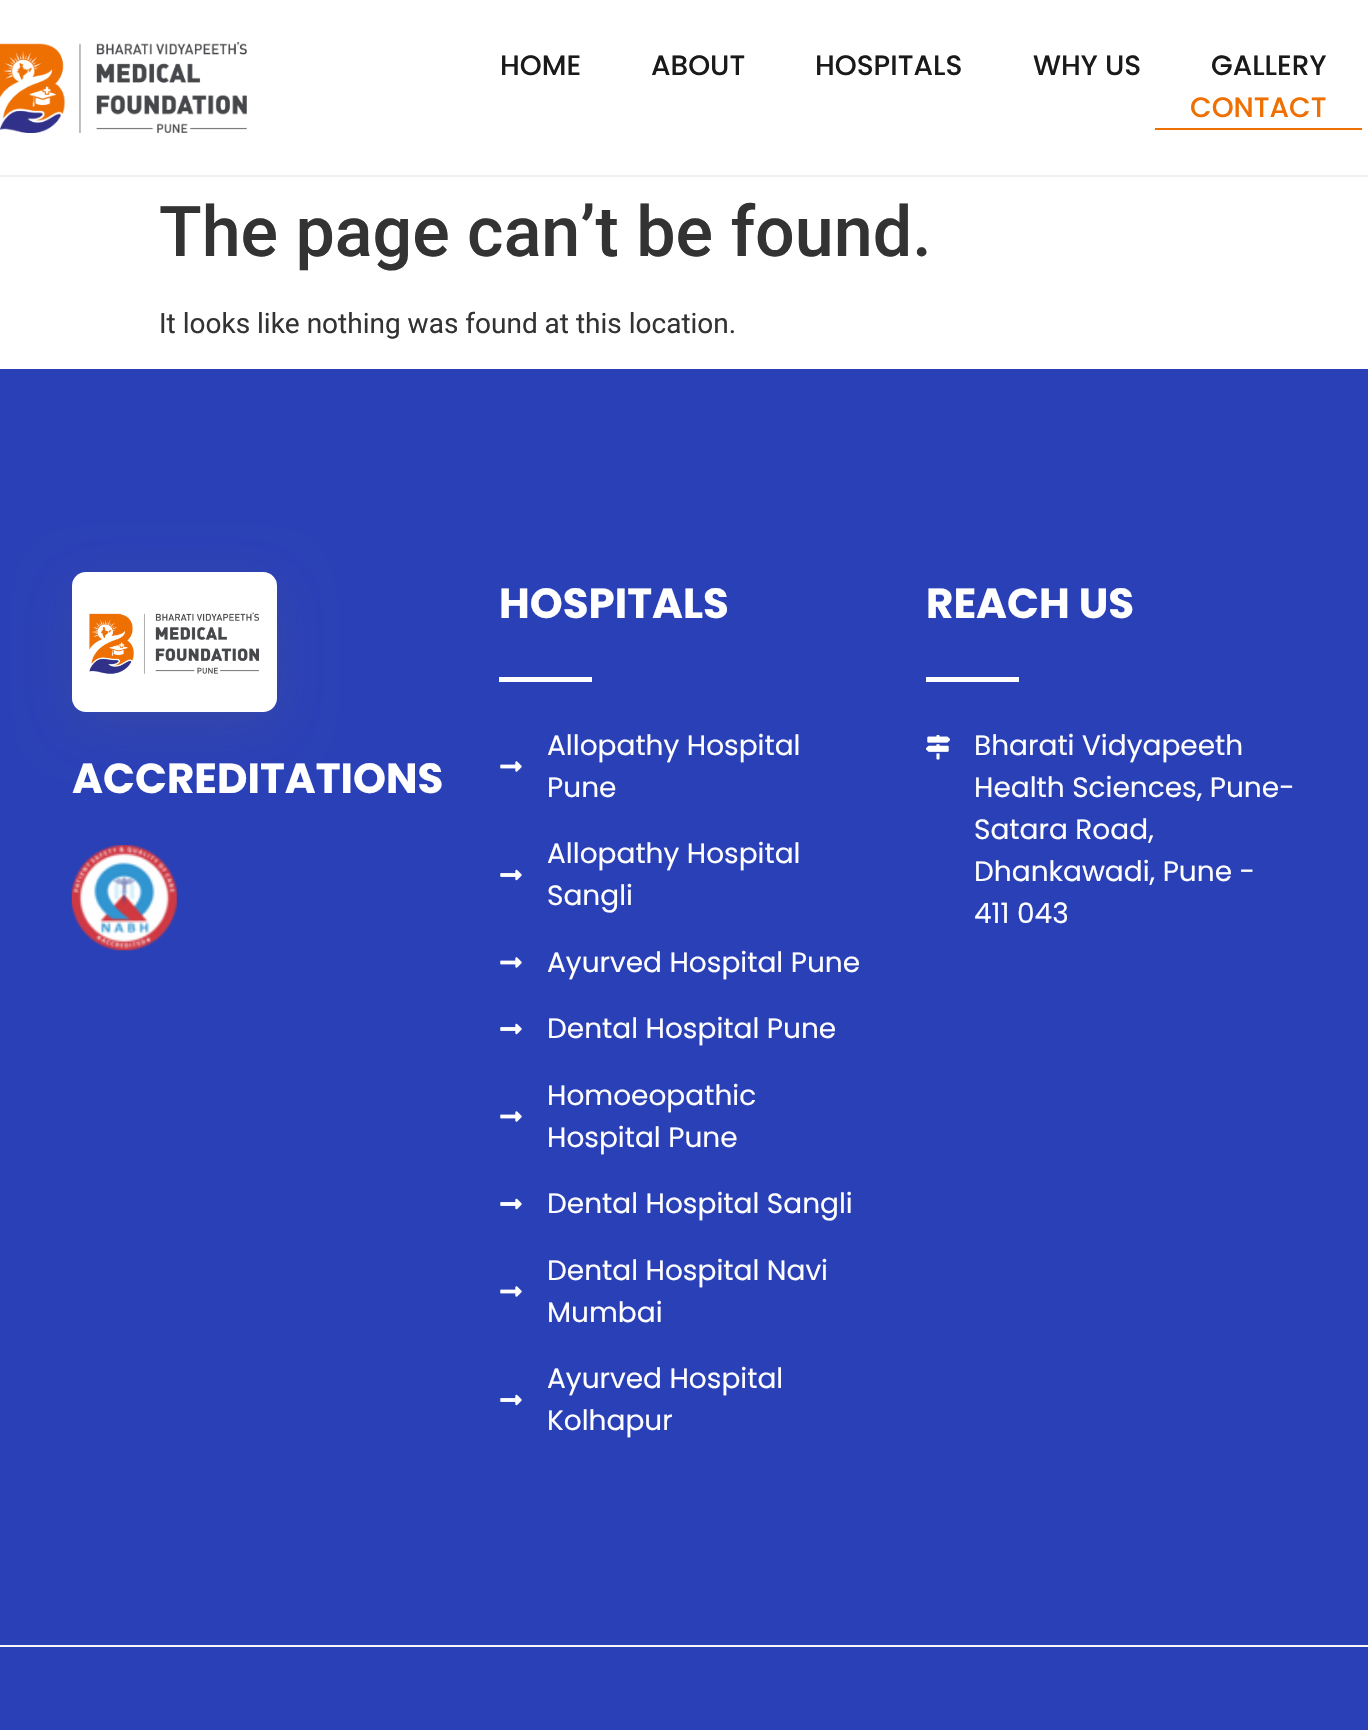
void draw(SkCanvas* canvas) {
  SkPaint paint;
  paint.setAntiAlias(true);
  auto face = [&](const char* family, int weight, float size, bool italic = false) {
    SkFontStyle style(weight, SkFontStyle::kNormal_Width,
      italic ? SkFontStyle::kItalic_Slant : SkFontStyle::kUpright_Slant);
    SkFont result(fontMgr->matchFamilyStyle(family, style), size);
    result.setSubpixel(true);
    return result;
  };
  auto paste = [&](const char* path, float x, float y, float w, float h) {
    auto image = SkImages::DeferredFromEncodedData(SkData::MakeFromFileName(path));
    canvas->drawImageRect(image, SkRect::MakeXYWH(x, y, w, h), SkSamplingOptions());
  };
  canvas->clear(0xffffffff);
  paint.setColor(0xffefefef);
  canvas->drawRect(SkRect::MakeXYWH(0, 175, 1368, 2), paint);
  paste("img/1.png", 0, 42, 247, 91);
  paint.setColor(0xffee6f02);
  canvas->drawRect(SkRect::MakeXYWH(1155, 128, 207, 2), paint);
  paint.setColor(0xff2a40b6);
  canvas->drawRect(SkRect::MakeXYWH(0, 369, 1368, 1276), paint);
  paint.setColor(0x3364646f);
  paint.setMaskFilter(SkMaskFilter::MakeBlur(kNormal_SkBlurStyle, 25.5f));
  canvas->drawRoundRect(SkRect::MakeXYWH(72, 585, 205, 140), 14, 14, paint);
  paint.setMaskFilter(nullptr);
  paint.setColor(0xffffffff);
  canvas->drawRoundRect(SkRect::MakeXYWH(72, 572, 205, 140), 14, 14, paint);
  paste("img/2.png", 89, 612, 170, 62);
  paste("img/3.png", 71, 845, 106, 106);
  canvas->drawRect(SkRect::MakeXYWH(499, 677, 93, 5), paint);
  paste("img/4.png", 500, 761, 22, 11);
  paste("img/5.png", 500, 869, 22, 12);
  paste("img/4.png", 500, 957, 22, 11);
  paste("img/5.png", 500, 1023, 22, 12);
  paste("img/4.png", 500, 1111, 22, 11);
  paste("img/5.png", 500, 1198, 22, 12);
  paste("img/4.png", 500, 1286, 22, 11);
  paste("img/5.png", 500, 1394, 22, 12);
  canvas->drawRect(SkRect::MakeXYWH(926, 677, 93, 5), paint);
  paste("img/6.png", 926, 735, 24, 25);
  paint.setColor(0xff2a40b6);
  canvas->drawRect(SkRect::MakeXYWH(0, 1647, 1368, 83), paint);
  paint.setColor(0xfff7f7f7);
  canvas->drawRect(SkRect::MakeXYWH(0, 1645, 1368, 2), paint);
  auto f0 = face("Poppins", 500, 28);
  paint.setColor(0xff1a1a1a);
  {
    const struct { const char* s; float x, y; } items[] = {
      {"HOME", 500, 75},
      {"ABOUT", 651, 75},
      {"HOSPITALS", 815, 75},
      {"WHY US", 1033, 75},
      {"GALLERY", 1211, 75},
    };
    for (auto [s, x, y] : items) {
      canvas->drawString(s, x, y, f0, paint);
    }
  }
  paint.setColor(0xffee6f02);
  canvas->drawString("CONTACT", 1190, 117, f0, paint);
  auto f1 = face("Roboto", 500, 70);
  paint.setColor(0xff333333);
  canvas->drawString("The page can’t be found.", 159, 256, f1, paint);
  auto f2 = face("Roboto", 400, 28);
  canvas->drawString("It looks like nothing was found at this location.", 159, 333, f2, paint);
  auto f3 = face("Poppins", 700, 42);
  paint.setColor(0xffffffff);
  canvas->drawString("ACCREDITATIONS", 72, 793, f3, paint);
  canvas->drawString("HOSPITALS", 499, 618, f3, paint);
  auto f4 = face("Poppins", 400, 28);
  {
    const struct { const char* s; float x, y; } items[] = {
      {"Allopathy Hospital", 547, 755},
      {"Pune", 547, 797},
      {"Allopathy Hospital", 547, 863},
      {"Sangli", 547, 905},
      {"Ayurved Hospital Pune", 547, 972},
      {"Dental Hospital Pune", 547, 1038},
      {"Homoeopathic", 547, 1105},
      {"Hospital Pune", 547, 1147},
      {"Dental Hospital Sangli", 547, 1213},
      {"Dental Hospital Navi", 547, 1280},
      {"Mumbai", 547, 1322},
      {"Ayurved Hospital", 547, 1388},
      {"Kolhapur", 547, 1430},
    };
    for (auto [s, x, y] : items) {
      canvas->drawString(s, x, y, f4, paint);
    }
  }
  canvas->drawString("REACH US", 926, 618, f3, paint);
  {
    const struct { const char* s; float x, y; } items[] = {
      {"Bharati Vidyapeeth", 974, 755},
      {"Health Sciences, Pune-", 974, 797},
      {"Satara Road,", 974, 839},
      {"Dhankawadi, Pune -", 974, 881},
      {"411 043", 974, 923},
    };
    for (auto [s, x, y] : items) {
      canvas->drawString(s, x, y, f4, paint);
    }
  }
}
